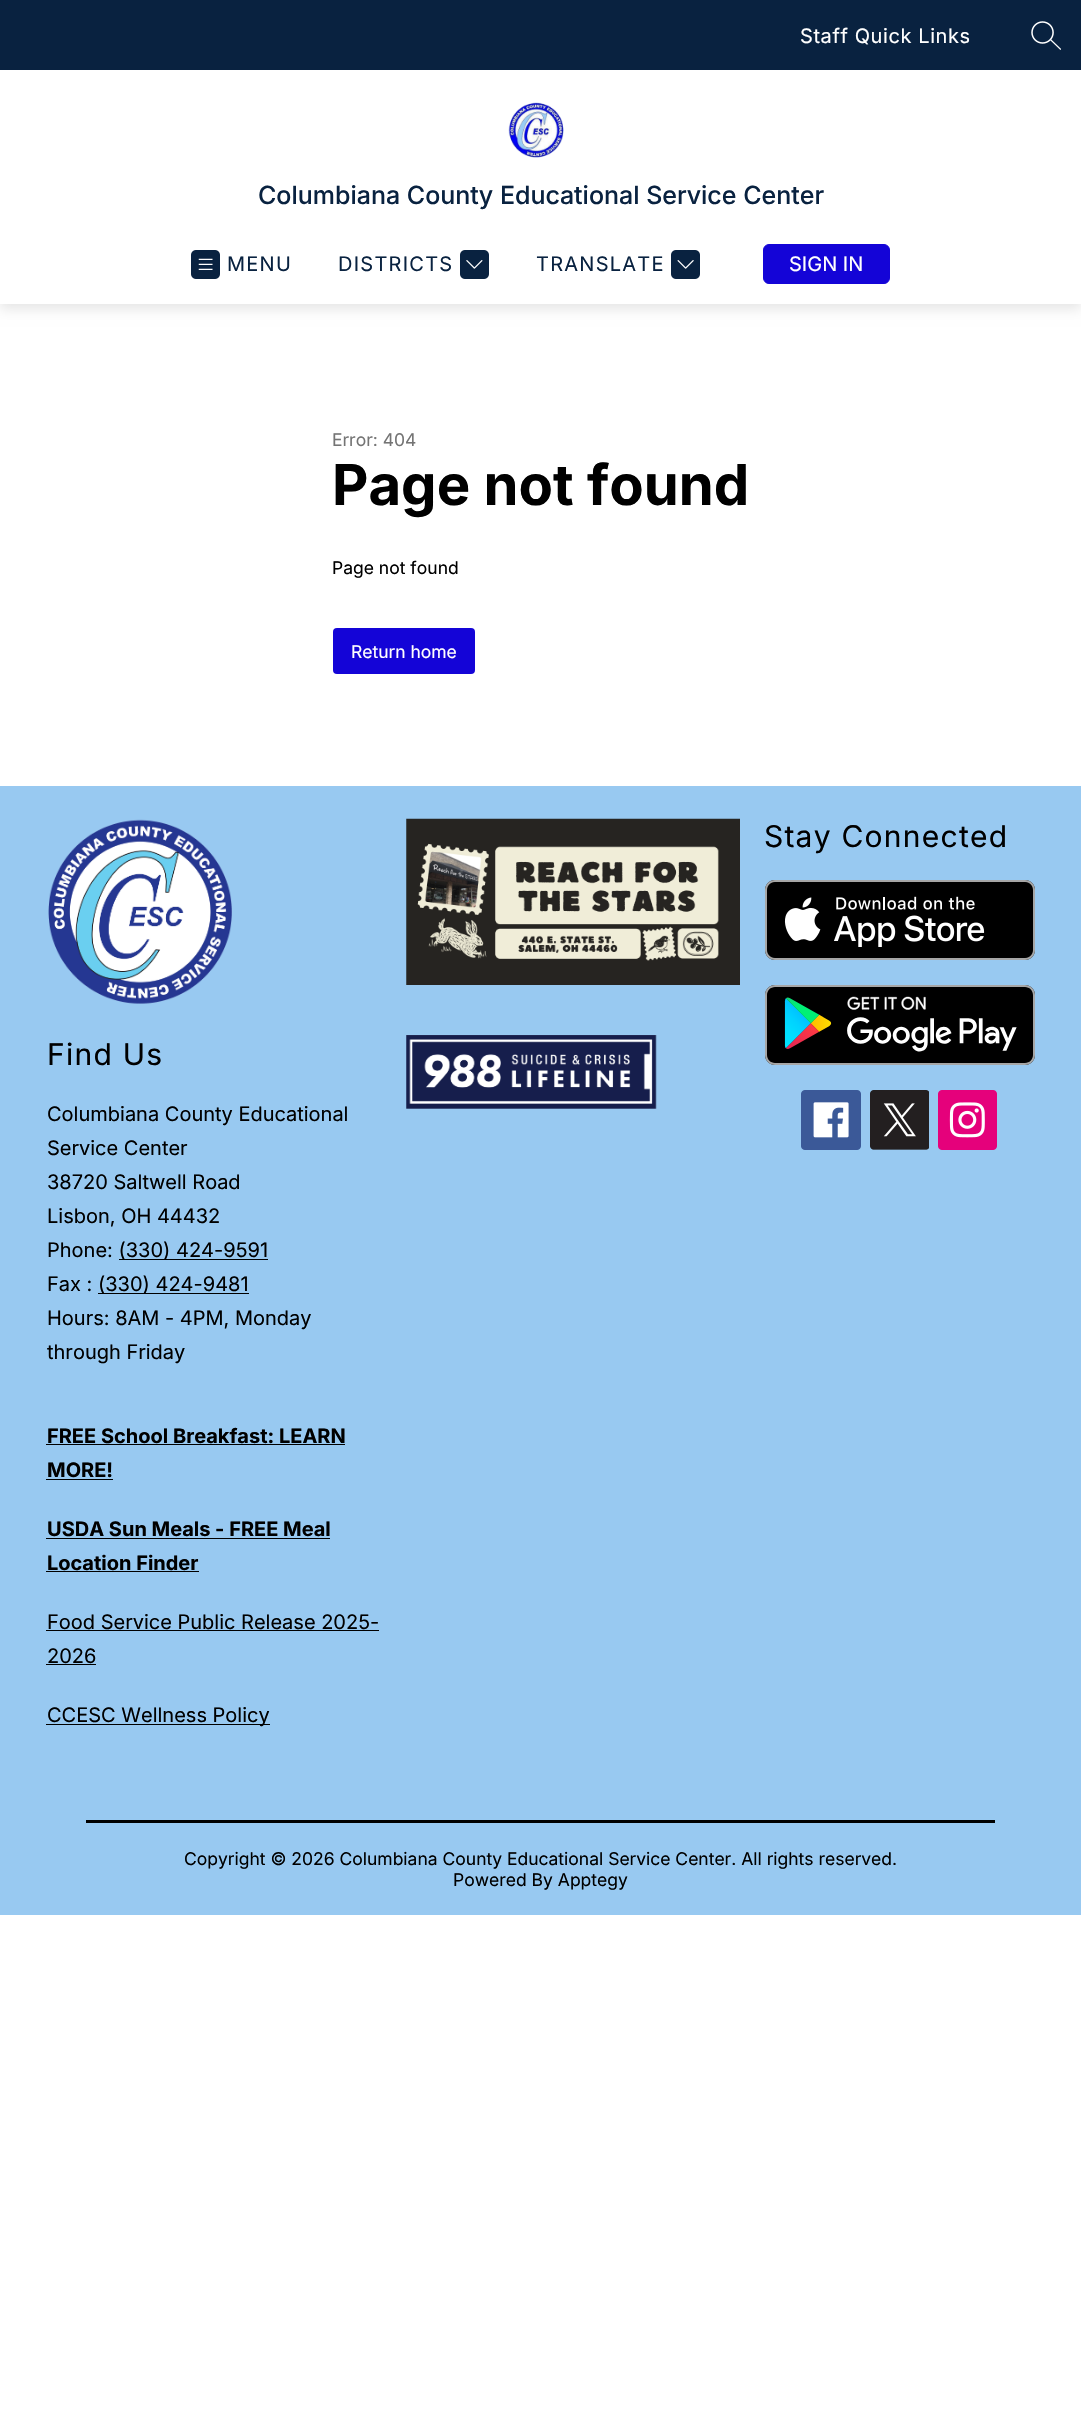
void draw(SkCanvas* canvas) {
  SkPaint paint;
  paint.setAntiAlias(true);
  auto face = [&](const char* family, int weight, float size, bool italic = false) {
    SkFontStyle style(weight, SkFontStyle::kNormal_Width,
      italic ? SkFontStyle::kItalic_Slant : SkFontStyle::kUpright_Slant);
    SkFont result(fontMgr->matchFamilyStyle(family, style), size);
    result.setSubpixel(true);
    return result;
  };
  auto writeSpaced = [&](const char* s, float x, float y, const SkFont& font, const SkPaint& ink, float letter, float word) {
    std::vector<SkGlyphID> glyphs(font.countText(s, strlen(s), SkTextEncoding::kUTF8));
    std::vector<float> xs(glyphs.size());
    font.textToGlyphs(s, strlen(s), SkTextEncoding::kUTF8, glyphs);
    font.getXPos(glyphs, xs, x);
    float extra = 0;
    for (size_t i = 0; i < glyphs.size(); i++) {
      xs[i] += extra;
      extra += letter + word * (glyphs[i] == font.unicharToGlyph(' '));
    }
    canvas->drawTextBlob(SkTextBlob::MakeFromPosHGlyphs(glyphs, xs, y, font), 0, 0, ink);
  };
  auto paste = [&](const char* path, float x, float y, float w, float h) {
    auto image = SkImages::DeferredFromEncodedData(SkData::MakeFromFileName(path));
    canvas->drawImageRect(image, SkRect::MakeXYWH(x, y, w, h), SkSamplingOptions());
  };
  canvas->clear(0xffffffff);
  paint.setColor(0x1a000000);
  paint.setMaskFilter(SkMaskFilter::MakeBlur(kNormal_SkBlurStyle, 6));
  canvas->drawRect(SkRect::MakeXYWH(0, 5, 1081, 304), paint);
  paint.setMaskFilter(nullptr);
  paint.setColor(0xffffffff);
  canvas->drawRect(SkRect::MakeXYWH(0, 70, 1081, 234), paint);
  paint.setColor(0xff092240);
  canvas->drawRect(SkRect::MakeXYWH(0, 0, 1081, 70), paint);
  paste("img/1.png", 1031, 21, 30, 29);
  paste("img/2.png", 508, 102, 56, 56);
  paste("img/3.png", 191, 250, 29, 29);
  paste("img/4.png", 460, 250, 29, 29);
  paste("img/5.png", 671, 250, 29, 29);
  paint.setColor(0xff1404d7);
  canvas->drawRoundRect(SkRect::MakeXYWH(763.5f, 244.5f, 126, 39), 5.5f, 5.5f, paint);
  paint.setStroke(true);
  paint.setStrokeWidth(1);
  canvas->drawRoundRect(SkRect::MakeXYWH(763.5f, 244.5f, 126, 39), 5.5f, 5.5f, paint);
  paint.setStroke(false);
  canvas->drawRoundRect(SkRect::MakeXYWH(333, 628, 142, 46), 4, 4, paint);
  paint.setColor(0xff98c9f1);
  canvas->drawRect(SkRect::MakeXYWH(0, 786, 1081, 1129), paint);
  paste("img/6.png", 406, 818, 334, 167);
  paste("img/7.png", 406, 1035, 251, 74);
  paste("img/8.png", 765, 880, 270, 80);
  paste("img/9.png", 765, 985, 270, 80);
  paste("img/10.png", 801, 1090, 60, 60);
  paste("img/11.png", 870, 1090, 59, 60);
  paste("img/12.png", 938, 1090, 59, 60);
  paste("img/13.png", 48, 819, 184, 185);
  {
    const struct { float x, y, w, h; SkColor color; } items[] = {
      {119, 1259, 149, 1, 0xff000000},
      {98, 1293, 151, 1, 0xff000000},
      {46, 1444, 299, 1, 0xff000000},
      {46, 1479, 67, 1, 0xff000000},
      {46, 1538, 284, 1, 0xff000000},
      {46, 1571, 153, 1, 0xff000000},
      {46, 1630, 333, 1, 0xff000000},
      {46, 1664, 50, 1, 0xff000000},
      {46, 1724, 224, 1, 0xff000000},
      {86, 1820, 909, 3, 0xff000000},
    };
    for (auto [x, y, w, h, color] : items) {
      paint.setColor(color);
      canvas->drawRect(SkRect::MakeXYWH(x, y, w, h), paint);
    }
  }
  auto f0 = face("Inter", 400, 20);
  paint.setColor(0xffffffff);
  writeSpaced("Staff Quick Links", 800, 43, f0, paint, 0.6f, 0);
  auto f1 = face("Inter", 500, 25);
  paint.setColor(0xff092240);
  canvas->drawString("Columbiana County Educational Service Center", 258, 204, f1, paint);
  {
    const struct { const char* s; float x, y; } items[] = {
      {"MENU", 227, 271},
      {"DISTRICTS", 338, 271},
      {"TRANSLATE", 536, 271},
    };
    for (auto [s, x, y] : items) {
      writeSpaced(s, x, y, f0, paint, 1.25f, 0);
    }
  }
  paint.setColor(0xffffffff);
  canvas->drawString("SIGN IN", 789, 271, f0, paint);
  auto f2 = face("Inter", 400, 17.5f);
  paint.setColor(0xff747474);
  canvas->drawString("Error: 404", 332, 446, f2, paint);
  auto f3 = face("Inter", 700, 56.25f);
  paint.setColor(0xff000000);
  canvas->drawString("Page not found", 332, 505, f3, paint);
  canvas->drawString("Page not found", 332, 574, f2, paint);
  paint.setColor(0xffffffff);
  canvas->drawString("Return home", 351, 658, f2, paint);
  auto f4 = face("Inter", 400, 30);
  paint.setColor(0xff000000);
  writeSpaced("Stay Connected", 764, 847, f4, paint, 1.25f, 0);
  writeSpaced("Find Us", 47, 1065, f4, paint, 1.25f, 0);
  {
    const struct { const char* s; float x, y; } items[] = {
      {"Columbiana County Educational", 47, 1121},
      {"Service Center", 47, 1155},
      {"38720 Saltwell Road", 47, 1189},
      {"Lisbon, OH 44432", 47, 1223},
      {"Phone: (330) 424-9591", 47, 1257},
      {"Fax : (330) 424-9481", 47, 1291},
      {"Hours: 8AM - 4PM, Monday", 47, 1325},
      {"through Friday", 47, 1359},
    };
    for (auto [s, x, y] : items) {
      canvas->drawString(s, x, y, f0, paint);
    }
  }
  auto f5 = face("Inter", 700, 20);
  {
    const struct { const char* s; float x, y; } items[] = {
      {"FREE School Breakfast: LEARN", 47, 1443},
      {"MORE!", 47, 1477},
      {"USDA Sun Meals - FREE Meal", 47, 1536},
      {"Location Finder", 47, 1570},
    };
    for (auto [s, x, y] : items) {
      canvas->drawString(s, x, y, f5, paint);
    }
  }
  {
    const struct { const char* s; float x, y; } items[] = {
      {"Food Service Public Release 2025-", 47, 1629},
      {"2026", 47, 1663},
      {"CCESC Wellness Policy", 47, 1722},
    };
    for (auto [s, x, y] : items) {
      canvas->drawString(s, x, y, f0, paint);
    }
  }
  canvas->drawString("Copyright © 2026 Columbiana County Educational Service Center. All rights reserved.", 184, 1865, f2, paint);
  canvas->drawString("Powered By Apptegy", 453, 1886, f2, paint);
}
